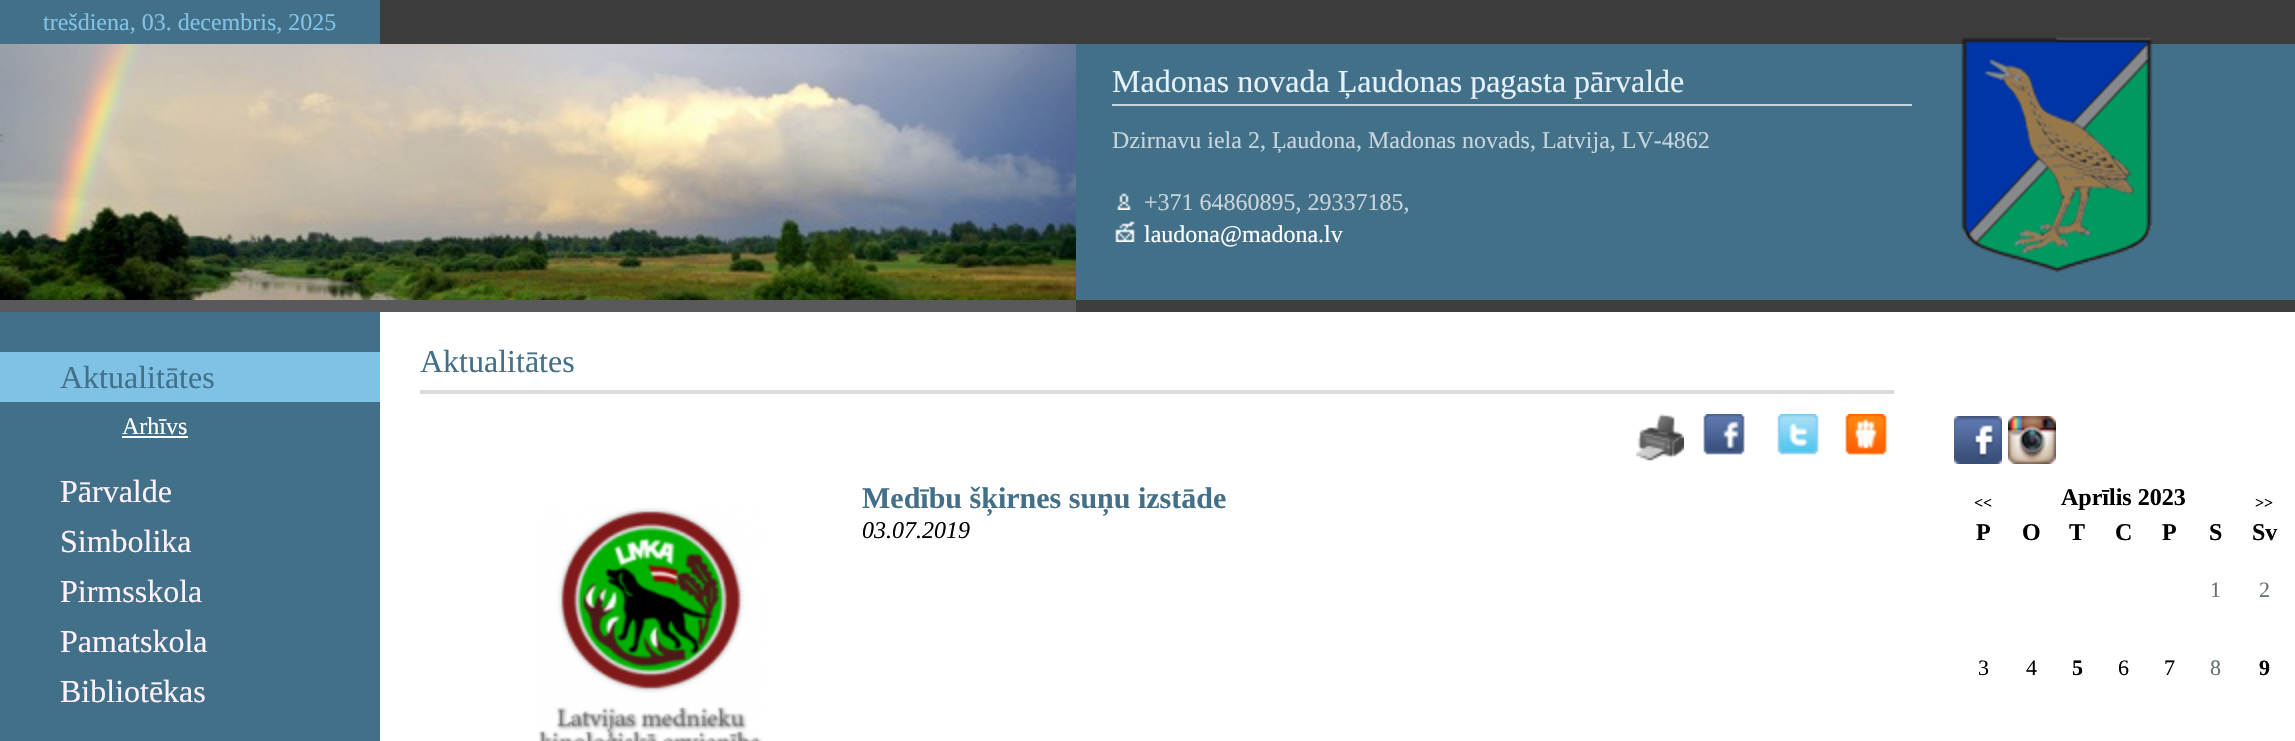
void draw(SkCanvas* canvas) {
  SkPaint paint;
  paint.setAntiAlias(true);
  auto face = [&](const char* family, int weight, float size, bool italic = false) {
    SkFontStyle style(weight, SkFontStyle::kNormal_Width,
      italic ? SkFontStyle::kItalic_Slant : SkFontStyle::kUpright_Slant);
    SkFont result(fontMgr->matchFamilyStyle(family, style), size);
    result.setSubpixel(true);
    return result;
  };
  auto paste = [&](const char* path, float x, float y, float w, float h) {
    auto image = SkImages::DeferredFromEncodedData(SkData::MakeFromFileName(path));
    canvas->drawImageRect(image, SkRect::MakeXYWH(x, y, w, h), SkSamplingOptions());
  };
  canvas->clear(0xffffffff);
  paint.setColor(0xff3c3c3c);
  canvas->drawRect(SkRect::MakeXYWH(380, 0, 1915, 44), paint);
  paint.setColor(0xff437089);
  canvas->drawRect(SkRect::MakeXYWH(0, 0, 380, 44), paint);
  paste("img/1.png", 0, 44, 1076, 256);
  canvas->drawRect(SkRect::MakeXYWH(1076, 44, 1219, 256), paint);
  paint.setColor(0xffc7d4dc);
  canvas->drawRect(SkRect::MakeXYWH(1112, 104, 800, 2), paint);
  paste("img/2.png", 1961, 37, 192, 236);
  paste("img/3.png", 1117, 193, 14, 17);
  paste("img/4.png", 1115, 221, 20, 21);
  {
    const struct { float x, y, w, h; SkColor color; } items[] = {
      {0, 300, 1076, 12, 0xff59595b},
      {1076, 300, 1219, 12, 0xff3e3e3e},
      {0, 312, 380, 429, 0xff437089},
      {0, 352, 380, 50, 0xff7fc2e6},
      {122, 436, 66, 2, 0xffffffff},
      {420, 390, 1474, 4, 0xffdbdbdb},
    };
    for (auto [x, y, w, h, color] : items) {
      paint.setColor(color);
      canvas->drawRect(SkRect::MakeXYWH(x, y, w, h), paint);
    }
  }
  paste("img/5.png", 1636, 414, 48, 47);
  paste("img/6.png", 1703, 414, 42, 41);
  paste("img/7.png", 1777, 414, 42, 41);
  paste("img/8.png", 1845, 414, 42, 41);
  paste("img/9.png", 538, 507, 225, 234);
  paste("img/10.png", 1954, 416, 48, 48);
  paste("img/11.png", 2008, 416, 48, 48);
  auto f0 = face("Liberation Serif", 400, 24);
  paint.setColor(0xff7fc2e6);
  canvas->drawString("trešdiena, 03. decembris, 2025", 43, 30, f0, paint);
  auto f1 = face("Liberation Serif", 400, 32);
  paint.setColor(0xffe5f1f8);
  canvas->drawString("Madonas novada Ļaudonas pagasta pārvalde", 1112, 92, f1, paint);
  paint.setColor(0xffc7d4dc);
  canvas->drawString("Dzirnavu iela 2, Ļaudona, Madonas novads, Latvija, LV-4862", 1112, 148, f0, paint);
  canvas->drawString("+371 64860895, 29337185,", 1144, 210, f0, paint);
  paint.setColor(0xffffffff);
  canvas->drawString("laudona@madona.lv", 1144, 242, f0, paint);
  paint.setColor(0xff437089);
  canvas->drawString("Aktualitātes", 60, 388, f1, paint);
  paint.setColor(0xffffffff);
  canvas->drawString("Arhīvs", 122, 434, f0, paint);
  paint.setColor(0xfffff1f9);
  {
    const struct { const char* s; float x, y; } items[] = {
      {"Pārvalde", 60, 502},
      {"Simbolika", 60, 552},
      {"Pirmsskola", 60, 602},
      {"Pamatskola", 60, 652},
      {"Bibliotēkas", 60, 702},
    };
    for (auto [s, x, y] : items) {
      canvas->drawString(s, x, y, f1, paint);
    }
  }
  paint.setColor(0xff437089);
  canvas->drawString("Aktualitātes", 420, 372, f1, paint);
  auto f2 = face("Liberation Serif", 700, 30);
  canvas->drawString("Medību šķirnes suņu izstāde", 862, 508, f2, paint);
  auto f3 = face("Liberation Serif", 400, 24, true);
  paint.setColor(0xff000000);
  canvas->drawString("03.07.2019", 862, 538, f3, paint);
  auto f4 = face("Liberation Serif", 700, 16);
  canvas->drawString("<<", 1974, 508, f4, paint);
  auto f5 = face("Liberation Serif", 700, 24);
  canvas->drawString("Aprīlis 2023", 2061, 505, f5, paint);
  canvas->drawString(">>", 2255, 508, f4, paint);
  {
    const struct { const char* s; float x, y; } items[] = {
      {"P", 1976, 540},
      {"O", 2022, 540},
      {"T", 2069, 540},
      {"C", 2115, 540},
      {"P", 2162, 540},
      {"S", 2209, 540},
      {"Sv", 2252, 540},
    };
    for (auto [s, x, y] : items) {
      canvas->drawString(s, x, y, f5, paint);
    }
  }
  auto f6 = face("Liberation Serif", 400, 22);
  paint.setColor(0xff667171);
  canvas->drawString("1", 2210, 597, f6, paint);
  canvas->drawString("2", 2259, 597, f6, paint);
  paint.setColor(0xff000000);
  canvas->drawString("3", 1978, 675, f6, paint);
  canvas->drawString("4", 2026, 675, f6, paint);
  auto f7 = face("Liberation Serif", 700, 22);
  canvas->drawString("5", 2072, 675, f7, paint);
  canvas->drawString("6", 2118, 675, f6, paint);
  canvas->drawString("7", 2164, 675, f6, paint);
  paint.setColor(0xff667171);
  canvas->drawString("8", 2210, 675, f6, paint);
  paint.setColor(0xff000000);
  canvas->drawString("9", 2259, 675, f7, paint);
}
